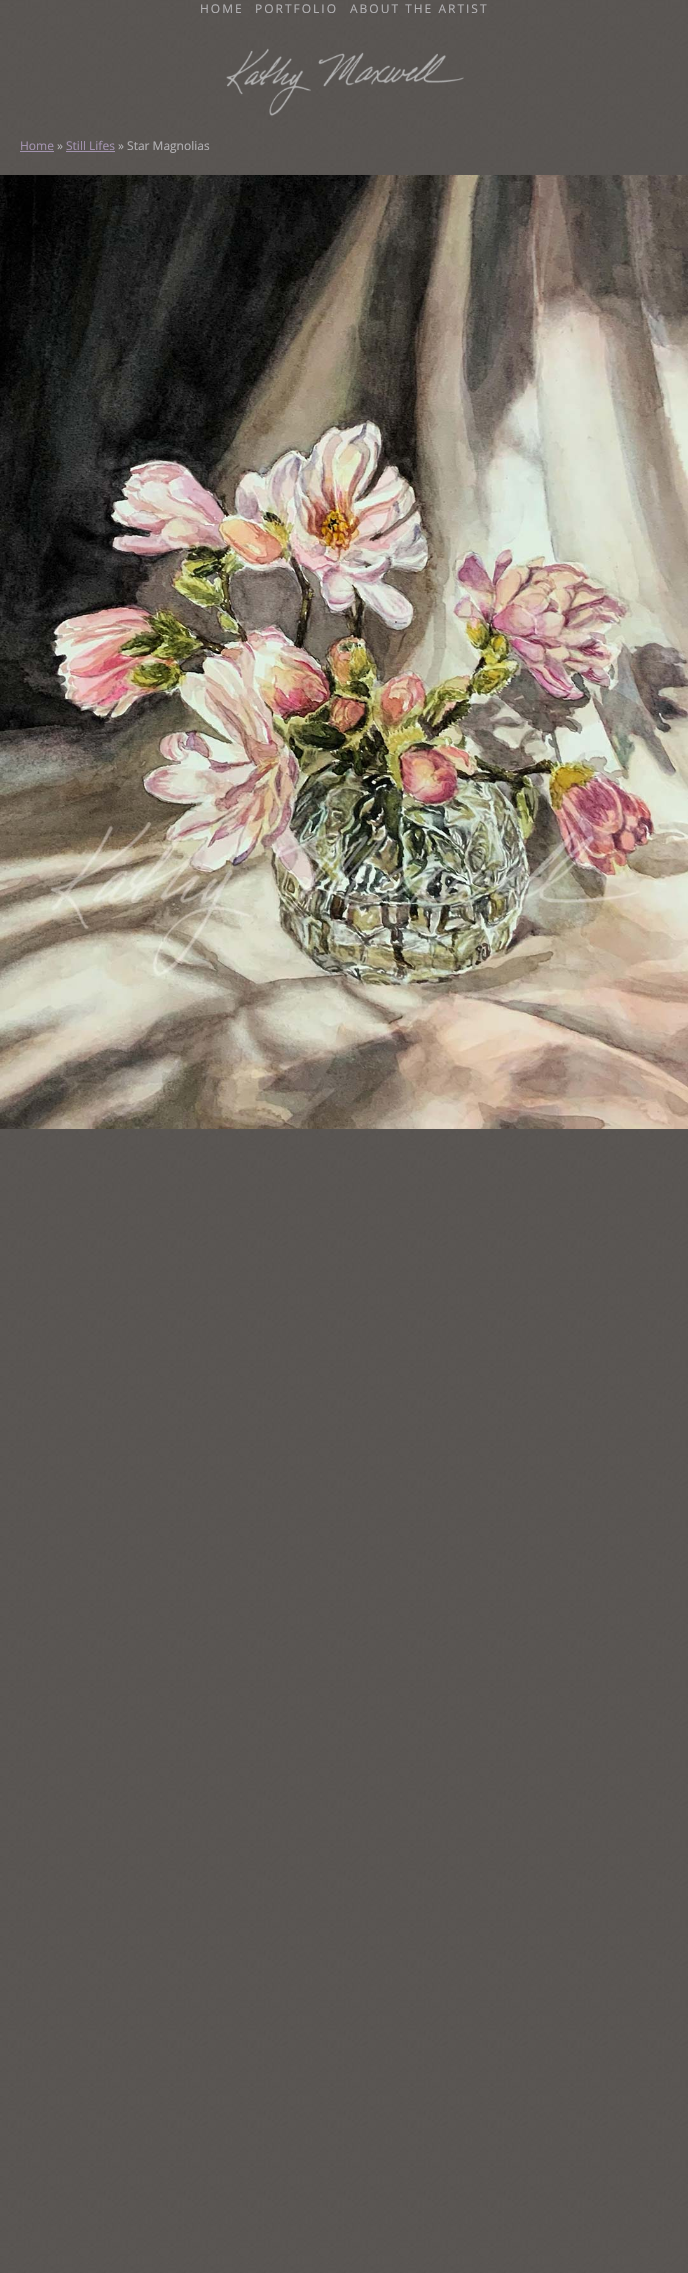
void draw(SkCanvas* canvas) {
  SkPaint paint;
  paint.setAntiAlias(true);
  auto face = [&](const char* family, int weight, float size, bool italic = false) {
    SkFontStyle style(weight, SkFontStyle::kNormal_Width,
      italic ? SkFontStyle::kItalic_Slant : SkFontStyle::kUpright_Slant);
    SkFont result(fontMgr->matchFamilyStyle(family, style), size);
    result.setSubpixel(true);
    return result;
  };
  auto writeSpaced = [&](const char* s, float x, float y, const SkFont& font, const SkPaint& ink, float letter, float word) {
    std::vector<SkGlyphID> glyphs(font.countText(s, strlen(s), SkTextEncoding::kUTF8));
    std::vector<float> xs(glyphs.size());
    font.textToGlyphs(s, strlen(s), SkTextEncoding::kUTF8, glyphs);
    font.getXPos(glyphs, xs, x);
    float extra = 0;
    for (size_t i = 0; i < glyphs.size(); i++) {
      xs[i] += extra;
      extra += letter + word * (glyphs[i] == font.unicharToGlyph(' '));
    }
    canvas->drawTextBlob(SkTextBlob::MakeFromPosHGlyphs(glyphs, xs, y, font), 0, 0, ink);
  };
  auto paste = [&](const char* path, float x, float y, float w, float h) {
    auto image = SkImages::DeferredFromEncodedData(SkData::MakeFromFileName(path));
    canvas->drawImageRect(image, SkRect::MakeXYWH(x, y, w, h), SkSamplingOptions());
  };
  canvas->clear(0xffffffff);
  paste("img/1.png", 0, 0, 688, 2273);
  paste("img/2.png", 226, 48, 238, 68);
  paint.setColor(0xffa393af);
  canvas->drawRect(SkRect::MakeXYWH(20, 151, 34, 1), paint);
  canvas->drawRect(SkRect::MakeXYWH(66, 151, 49, 1), paint);
  paste("img/3.png", 0, 175, 688, 954);
  auto f0 = face("Open Sans", 400, 12);
  paint.setColor(0xffb2b1b4);
  {
    const struct { const char* s; float x, y; } items[] = {
      {"HOME", 200, 13},
      {"PORTFOLIO", 255, 13},
      {"ABOUT THE ARTIST", 350, 13},
    };
    for (auto [s, x, y] : items) {
      writeSpaced(s, x, y, f0, paint, 2, 0);
    }
  }
  paint.setColor(0xffa393af);
  canvas->drawString("Home", 20, 150, f0, paint);
  paint.setColor(0xffb2b1b4);
  canvas->drawString("»", 57, 150, f0, paint);
  paint.setColor(0xffa393af);
  canvas->drawString("Still Lifes", 66, 150, f0, paint);
  paint.setColor(0xffb2b1b4);
  canvas->drawString("» Star Magnolias", 118, 150, f0, paint);
}
